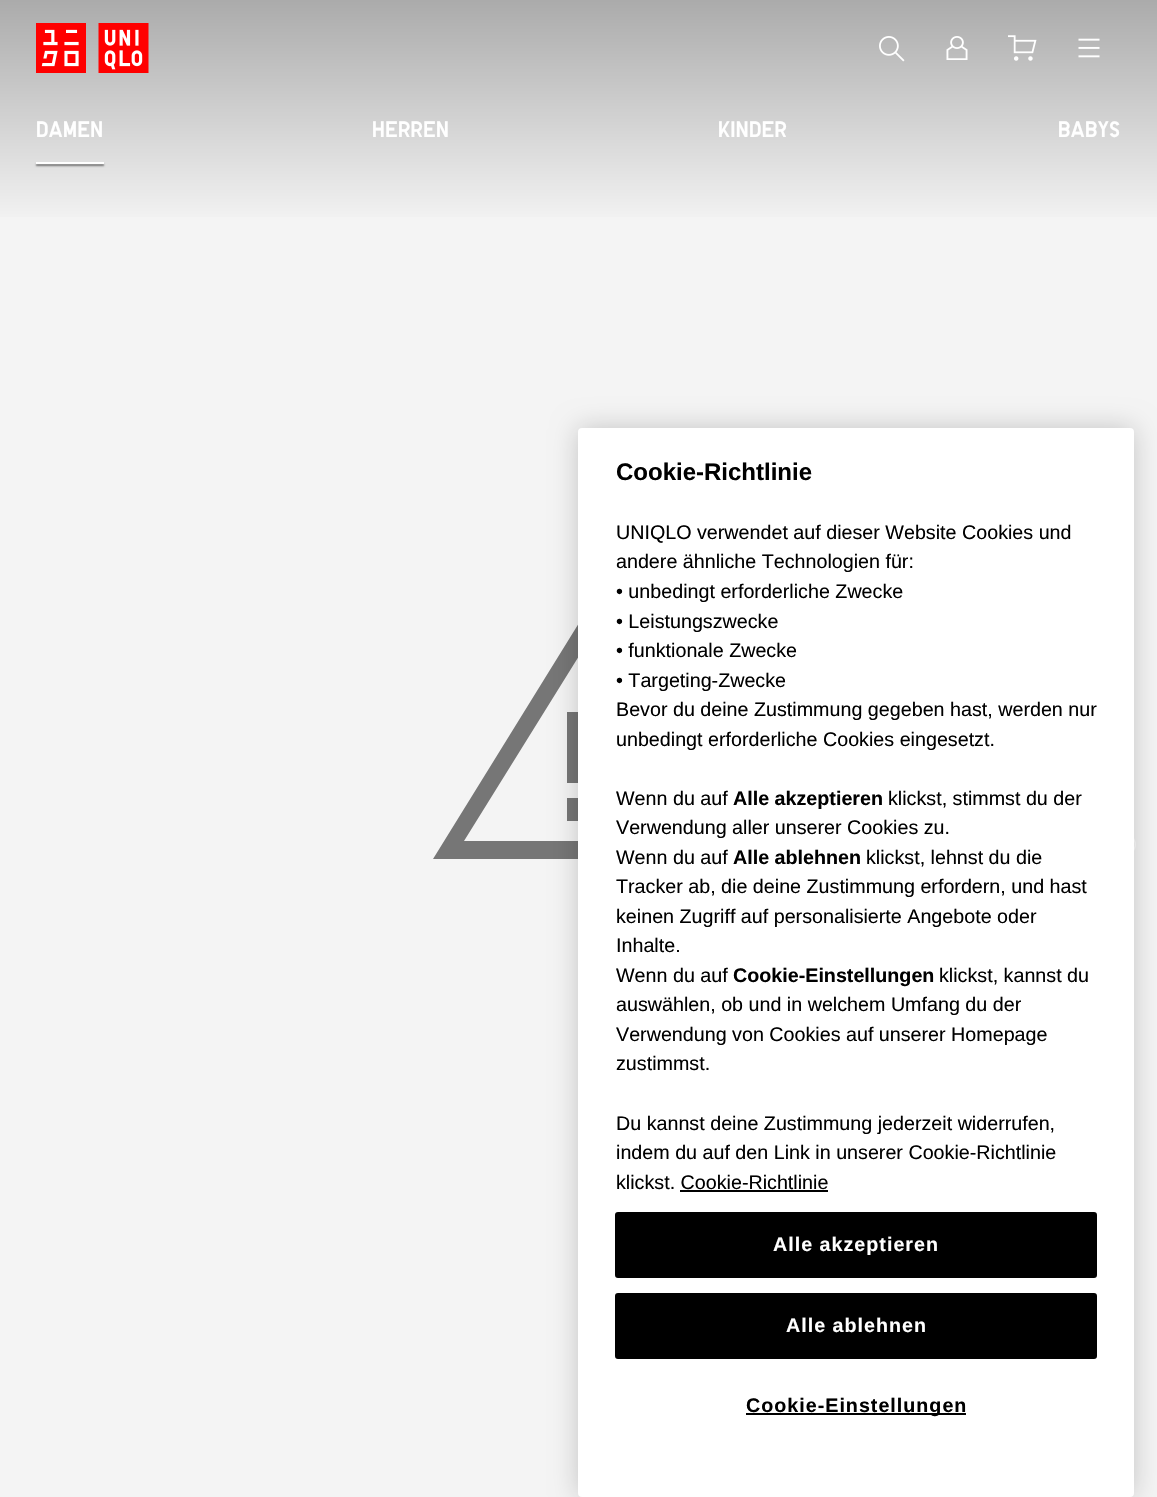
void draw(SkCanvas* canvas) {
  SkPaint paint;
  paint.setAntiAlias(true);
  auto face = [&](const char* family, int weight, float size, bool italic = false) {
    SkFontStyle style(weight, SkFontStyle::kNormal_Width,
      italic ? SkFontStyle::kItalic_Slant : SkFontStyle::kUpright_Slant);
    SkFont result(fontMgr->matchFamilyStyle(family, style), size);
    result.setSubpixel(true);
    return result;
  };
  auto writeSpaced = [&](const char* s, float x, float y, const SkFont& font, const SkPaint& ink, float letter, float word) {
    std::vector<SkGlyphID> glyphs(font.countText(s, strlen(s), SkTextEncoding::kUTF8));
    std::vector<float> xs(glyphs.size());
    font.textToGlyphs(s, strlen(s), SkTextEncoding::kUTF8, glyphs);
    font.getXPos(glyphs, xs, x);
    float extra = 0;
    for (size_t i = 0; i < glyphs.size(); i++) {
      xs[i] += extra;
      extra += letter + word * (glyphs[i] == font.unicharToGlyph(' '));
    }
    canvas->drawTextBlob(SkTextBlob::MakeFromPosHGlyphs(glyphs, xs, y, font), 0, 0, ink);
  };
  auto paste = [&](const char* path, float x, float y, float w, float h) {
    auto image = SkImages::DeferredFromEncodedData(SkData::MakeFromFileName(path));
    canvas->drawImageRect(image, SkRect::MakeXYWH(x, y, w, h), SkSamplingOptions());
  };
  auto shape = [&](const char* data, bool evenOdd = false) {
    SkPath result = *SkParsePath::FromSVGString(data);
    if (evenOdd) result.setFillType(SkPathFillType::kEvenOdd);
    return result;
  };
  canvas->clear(0xfff4f4f4);
  {
    const SkColor colors[] = {0xffababab, 0xfff4f4f4};
    const float stops[] = {0, 1};
    const SkPoint ends[] = {{579, 0}, {579, 225}};
    paint.setShader(SkGradientShader::MakeLinear(ends, colors, stops, 2, SkTileMode::kClamp));
    paint.setAlpha(255);
  }
  canvas->drawRect(SkRect::MakeXYWH(0, 0, 1157, 217), paint);
  paste("img/1.png", 36, 23, 113, 50);
  paste("img/2.png", 879, 36, 26, 26);
  paste("img/3.png", 946, 36, 22, 24);
  paste("img/4.png", 1008, 35, 29, 26);
  paste("img/5.png", 1078, 38, 22, 20);
  paint.setShader(nullptr);
  paint.setColor(0xff767676);
  canvas->drawPath(shape("M579 623L433 859H725ZM579 656L694 841H464Z"), paint);
  canvas->drawPath(shape("M591 712H567V783H591ZM591 798H567V821H591Z"), paint);
  paste("img/6.png", 1134, 838, 2, 13);
  paint.setColor(0x80000000);
  paint.setMaskFilter(SkMaskFilter::MakeBlur(kNormal_SkBlurStyle, 1));
  canvas->drawRect(SkRect::MakeXYWH(36, 164, 68, 2), paint);
  paint.setMaskFilter(nullptr);
  paint.setColor(0xffffffff);
  canvas->drawRect(SkRect::MakeXYWH(36, 162, 68, 2), paint);
  paint.setColor(0x33000000);
  paint.setMaskFilter(SkMaskFilter::MakeBlur(kNormal_SkBlurStyle, 13.5f));
  canvas->drawRoundRect(SkRect::MakeXYWH(578, 428, 556, 1069), 4, 4, paint);
  paint.setMaskFilter(nullptr);
  paint.setColor(0xffffffff);
  canvas->drawRoundRect(SkRect::MakeXYWH(578, 428, 556, 1069), 4, 4, paint);
  paint.setColor(0xff000000);
  canvas->drawRect(SkRect::MakeXYWH(680, 1190, 148, 2), paint);
  canvas->drawRoundRect(SkRect::MakeXYWH(616, 1213, 480, 64), 2, 2, paint);
  paint.setStroke(true);
  paint.setStrokeWidth(2);
  canvas->drawRoundRect(SkRect::MakeXYWH(616, 1213, 480, 64), 2, 2, paint);
  paint.setStroke(false);
  canvas->drawRoundRect(SkRect::MakeXYWH(616, 1294, 480, 64), 2, 2, paint);
  paint.setStroke(true);
  canvas->drawRoundRect(SkRect::MakeXYWH(616, 1294, 480, 64), 2, 2, paint);
  paint.setStroke(false);
  canvas->drawRect(SkRect::MakeXYWH(746, 1413, 220, 2), paint);
  auto f0 = face("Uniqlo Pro", 400, 22.5f);
  paint.setColor(0xffffffff);
  {
    const struct { const char* s; float x, y; } items[] = {
      {"DAMEN", 36, 137},
      {"HERREN", 372, 137},
      {"KINDER", 718, 137},
      {"BABYS", 1058, 137},
    };
    for (auto [s, x, y] : items) {
      writeSpaced(s, x, y, f0, paint, 0.5f, 0);
    }
  }
  auto f1 = face("Liberation Sans", 700, 24);
  paint.setColor(0xff000000);
  canvas->drawString("Cookie-Richtlinie", 616, 480, f1, paint);
  auto f2 = face("Liberation Sans", 400, 19.7f);
  {
    const struct { const char* s; float x, y; } items[] = {
      {"UNIQLO verwendet auf dieser Website Cookies und", 616, 539},
      {"andere ähnliche Technologien für:", 616, 568},
      {"• unbedingt erforderliche Zwecke", 616, 598},
      {"• Leistungszwecke", 616, 628},
      {"• funktionale Zwecke", 616, 657},
      {"• Targeting-Zwecke", 616, 687},
      {"Bevor du deine Zustimmung gegeben hast, werden nur", 616, 716},
      {"unbedingt erforderliche Cookies eingesetzt.", 616, 746},
      {"Wenn du auf", 616, 805},
    };
    for (auto [s, x, y] : items) {
      canvas->drawString(s, x, y, f2, paint);
    }
  }
  auto f3 = face("Liberation Sans", 700, 19.7f);
  canvas->drawString("Alle akzeptieren", 733, 805, f3, paint);
  {
    const struct { const char* s; float x, y; } items[] = {
      {"klickst, stimmst du der", 888, 805},
      {"Verwendung aller unserer Cookies zu.", 616, 834},
      {"Wenn du auf", 616, 864},
    };
    for (auto [s, x, y] : items) {
      canvas->drawString(s, x, y, f2, paint);
    }
  }
  canvas->drawString("Alle ablehnen", 733, 864, f3, paint);
  {
    const struct { const char* s; float x, y; } items[] = {
      {"klickst, lehnst du die", 866, 864},
      {"Tracker ab, die deine Zustimmung erfordern, und hast", 616, 893},
      {"keinen Zugriff auf personalisierte Angebote oder", 616, 923},
      {"Inhalte.", 616, 952},
      {"Wenn du auf", 616, 982},
    };
    for (auto [s, x, y] : items) {
      canvas->drawString(s, x, y, f2, paint);
    }
  }
  canvas->drawString("Cookie-Einstellungen", 733, 982, f3, paint);
  {
    const struct { const char* s; float x, y; } items[] = {
      {"klickst, kannst du", 939, 982},
      {"auswählen, ob und in welchem Umfang du der", 616, 1011},
      {"Verwendung von Cookies auf unserer Homepage", 616, 1041},
      {"zustimmst.", 616, 1070},
      {"Du kannst deine Zustimmung jederzeit widerrufen,", 616, 1130},
      {"indem du auf den Link in unserer Cookie-Richtlinie", 616, 1159},
      {"klickst. Cookie-Richtlinie", 616, 1189},
    };
    for (auto [s, x, y] : items) {
      canvas->drawString(s, x, y, f2, paint);
    }
  }
  paint.setColor(0xffffffff);
  writeSpaced("Alle akzeptieren", 773, 1251, f3, paint, 1, 0);
  writeSpaced("Alle ablehnen", 786, 1332, f3, paint, 1, 0);
  paint.setColor(0xff000000);
  writeSpaced("Cookie-Einstellungen", 746, 1412, f3, paint, 1, 0);
}
